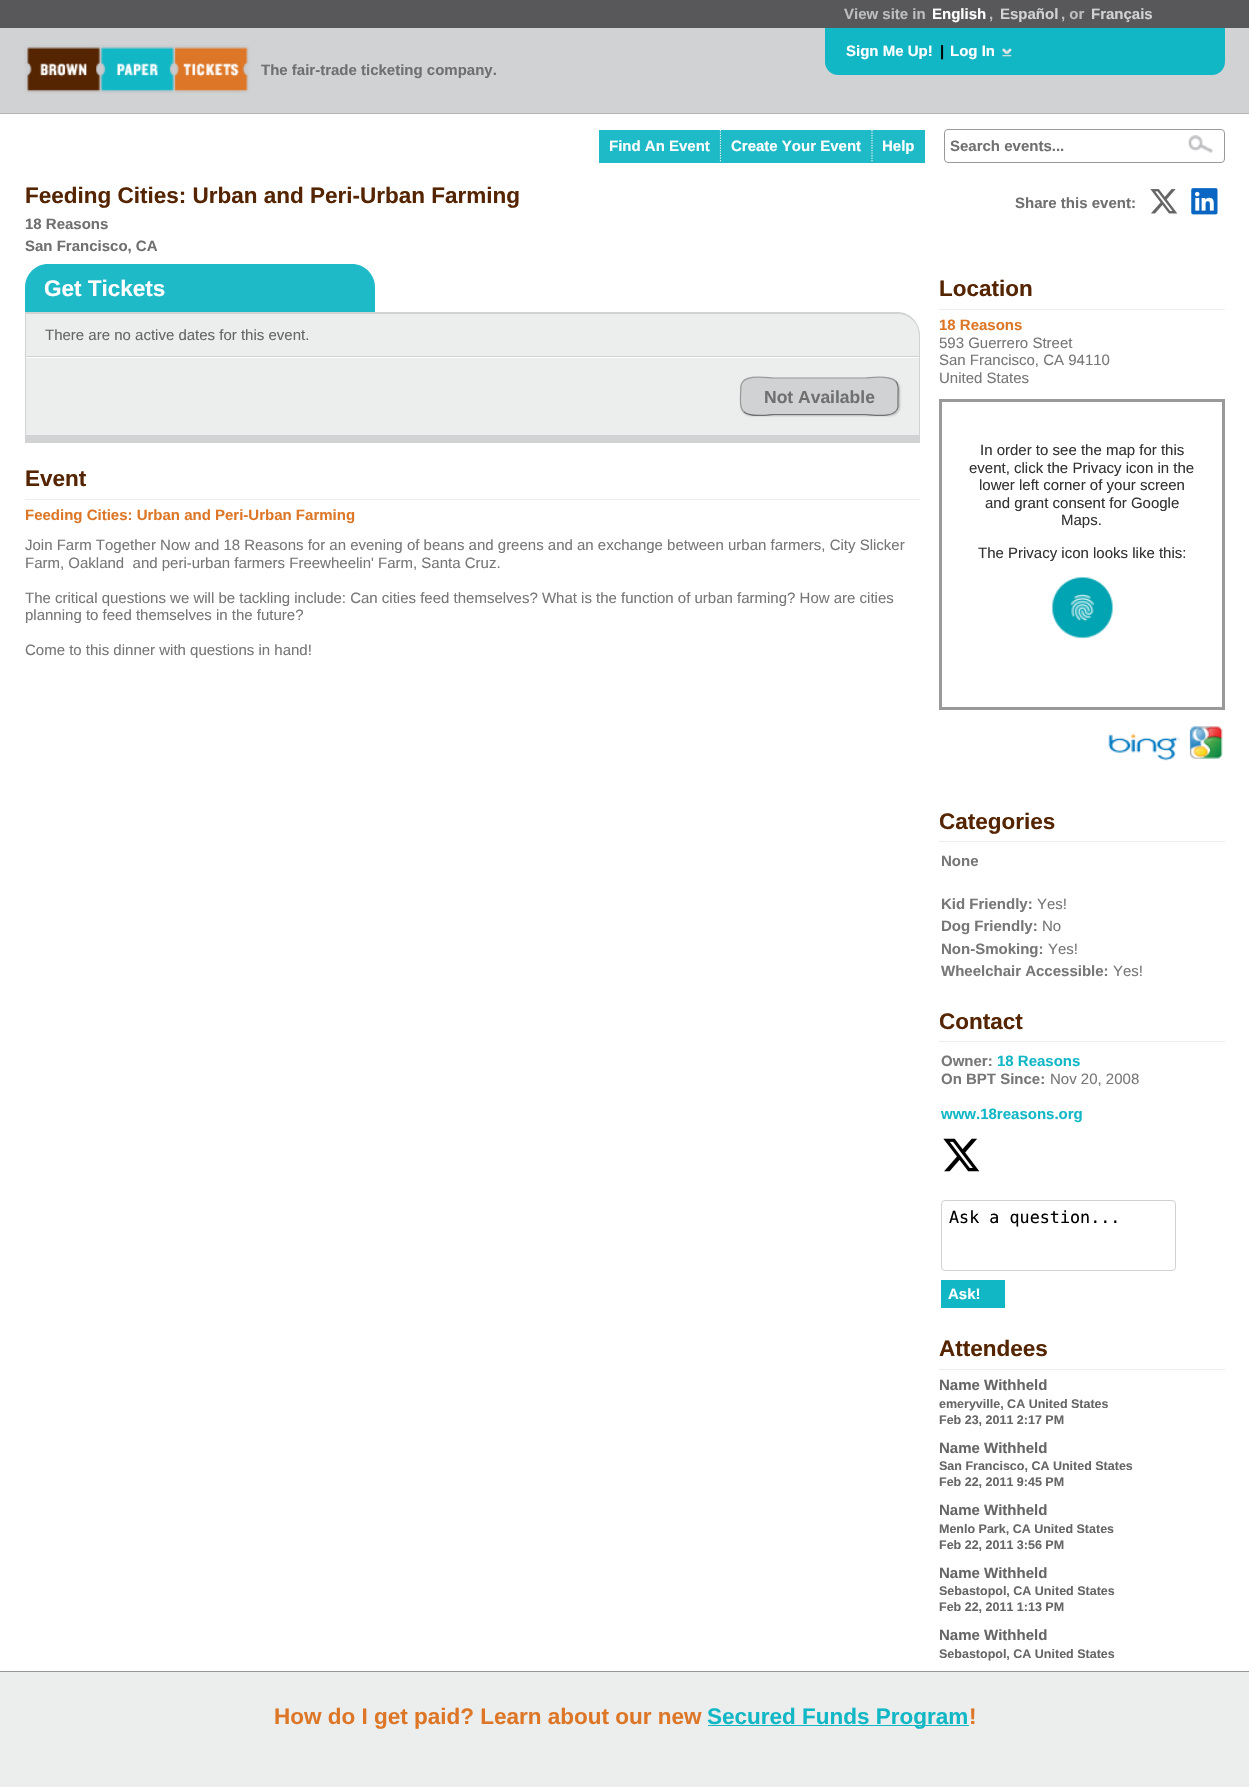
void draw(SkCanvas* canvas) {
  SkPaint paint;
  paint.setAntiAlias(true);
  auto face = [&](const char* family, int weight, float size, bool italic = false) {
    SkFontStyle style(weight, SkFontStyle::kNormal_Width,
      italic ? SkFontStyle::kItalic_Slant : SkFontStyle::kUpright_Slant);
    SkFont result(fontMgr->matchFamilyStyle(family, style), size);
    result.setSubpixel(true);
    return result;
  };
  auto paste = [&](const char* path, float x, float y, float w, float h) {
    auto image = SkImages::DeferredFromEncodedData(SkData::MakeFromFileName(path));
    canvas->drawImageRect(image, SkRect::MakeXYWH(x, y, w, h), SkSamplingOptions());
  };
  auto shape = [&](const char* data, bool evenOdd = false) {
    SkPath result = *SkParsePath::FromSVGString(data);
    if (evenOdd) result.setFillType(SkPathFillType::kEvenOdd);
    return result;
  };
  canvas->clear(0xff58585a);
  paint.setColor(0xffd1d2d4);
  canvas->drawRect(SkRect::MakeXYWH(0, 28, 1249, 85), paint);
  paint.setColor(0xffb2b4b6);
  canvas->drawRect(SkRect::MakeXYWH(0, 113, 1249, 1), paint);
  paste("img/1.png", 24, 45, 226, 49);
  paint.setColor(0xff12b7c6);
  canvas->drawPath(shape("M825 28H1225V62C1225 69 1219 75 1212 75H838C831 75 825 69 825 62Z"), paint);
  paste("img/2.png", 1002, 48, 10, 9);
  paint.setColor(0xffffffff);
  canvas->drawRect(SkRect::MakeXYWH(0, 114, 1249, 1557), paint);
  paint.setColor(0xff1fbac8);
  canvas->drawRect(SkRect::MakeXYWH(599, 130, 122, 33), paint);
  paint.setStroke(true);
  paint.setStrokeWidth(1.2f);
  paint.setColor(0xffefefef);
  paint.setPathEffect(SkDashPathEffect::Make({{1.25f, 1.25f}}, 0));
  canvas->drawPath(shape("M720.5 130V162.5"), paint);
  paint.setPathEffect(nullptr);
  paint.setStroke(false);
  paint.setColor(0xff1fbac8);
  canvas->drawRect(SkRect::MakeXYWH(721, 130, 204, 33), paint);
  paint.setStroke(true);
  paint.setColor(0xffefefef);
  paint.setPathEffect(SkDashPathEffect::Make({{1.25f, 1.25f}}, 0));
  canvas->drawPath(shape("M872 130V162.5"), paint);
  paint.setPathEffect(nullptr);
  paint.setStrokeWidth(1);
  paint.setColor(0xff999999);
  canvas->drawRoundRect(SkRect::MakeXYWH(944.5f, 129.5f, 280, 33), 3.5f, 3.5f, paint);
  paste("img/3.png", 1188, 135, 25, 18);
  paste("img/4.png", 1150, 189, 28, 25);
  paste("img/5.png", 1191, 188, 27, 27);
  paint.setStroke(false);
  paint.setColor(0xff1fbac8);
  canvas->drawPath(shape("M48 264H352C364.5 264 375 274.5 375 287V313H25V287C25 274.5 35.5 264 48 264Z"), paint);
  paint.setColor(0xffeceded);
  canvas->drawPath(shape("M25 313H897C909.5 313 920 323.5 920 336V356H25Z"), paint);
  paint.setColor(0xffd1d2d4);
  canvas->drawPath(shape("M25 312H898C910 312 920 323 920 335V356H25ZM26 314H898C909 314 919 323 919 335V356H26Z", true), paint);
  {
    const struct { float x, y, w, h; SkColor color; } items[] = {
      {26, 358, 893, 77, 0xffeceded},
      {25, 356, 895, 1, 0xffd1d2d4},
      {919, 356, 1, 87, 0xffd1d2d4},
      {25, 435, 895, 8, 0xffd1d2d4},
      {25, 356, 1, 87, 0xffd1d2d4},
    };
    for (auto [x, y, w, h, color] : items) {
      paint.setColor(color);
      canvas->drawRect(SkRect::MakeXYWH(x, y, w, h), paint);
    }
  }
  paint.setColor(0xffb8b8b8);
  paint.setMaskFilter(SkMaskFilter::MakeBlur(kNormal_SkBlurStyle, 1));
  canvas->drawRoundRect(SkRect::MakeXYWH(741, 379, 159, 37), 10, 10, paint);
  paint.setMaskFilter(nullptr);
  paint.setColor(0xffd1d2d4);
  canvas->drawRoundRect(SkRect::MakeXYWH(740, 378, 159, 37), 10, 10, paint);
  paint.setStroke(true);
  paint.setStrokeWidth(1.2f);
  paint.setColor(0xff707070);
  canvas->drawPath(shape("M895.5 381C899.5 385 898 391 898 396V407C895.5 419.5 871 414.5 865.5 414.5H773C772 414.5 749.5 418 743.5 411.5"), paint);
  paint.setColor(0xff999999);
  canvas->drawPath(shape("M743.5 411.5C739.5 407.5 740.5 401.5 740.5 396L741 385.5C743.5 373 768 378 773 378H865.5C866.5 378 889 374.5 895.5 381"), paint);
  paint.setStroke(false);
  paint.setColor(0xffeceded);
  canvas->drawRect(SkRect::MakeXYWH(25, 499, 895, 1), paint);
  canvas->drawRect(SkRect::MakeXYWH(939, 309, 286, 1), paint);
  paint.setStroke(true);
  paint.setStrokeWidth(3);
  paint.setColor(0xff999999);
  canvas->drawRect(SkRect::MakeXYWH(940.5f, 400.5f, 283, 308), paint);
  paste("img/6.png", 1051, 576, 63, 63);
  paste("img/7.png", 1108, 733, 72, 28);
  paste("img/8.png", 1189, 726, 34, 33);
  paint.setStroke(false);
  paint.setColor(0xffeceded);
  canvas->drawRect(SkRect::MakeXYWH(939, 841, 286, 1), paint);
  canvas->drawRect(SkRect::MakeXYWH(939, 1041, 286, 1), paint);
  paste("img/9.png", 943, 1138, 37, 34);
  paint.setStroke(true);
  paint.setStrokeWidth(1);
  paint.setColor(0xffd1d2d4);
  canvas->drawRoundRect(SkRect::MakeXYWH(941.5f, 1200.5f, 234, 70), 3.5f, 3.5f, paint);
  paint.setStroke(false);
  {
    const struct { float x, y, w, h; SkColor color; } items[] = {
      {941, 1280, 64, 28, 0xff12b7c6},
      {939, 1369, 286, 1, 0xffeceded},
      {0, 1672, 1249, 115, 0xffeceded},
      {0, 1671, 1249, 1, 0xff969699},
      {708, 1725, 261, 1, 0xff12b7c6},
    };
    for (auto [x, y, w, h, color] : items) {
      paint.setColor(color);
      canvas->drawRect(SkRect::MakeXYWH(x, y, w, h), paint);
    }
  }
  auto f0 = face("Liberation Sans", 700, 15);
  paint.setColor(0xffbdbec0);
  canvas->drawString("View site in", 844, 19, f0, paint);
  paint.setColor(0xffffffff);
  canvas->drawString("English", 932, 19, f0, paint);
  paint.setColor(0xffbdbec0);
  canvas->drawString(",", 989, 19, f0, paint);
  paint.setColor(0xffd1d2d4);
  canvas->drawString("Español", 1000, 19, f0, paint);
  paint.setColor(0xffbdbec0);
  canvas->drawString(", or", 1061, 19, f0, paint);
  paint.setColor(0xffd1d2d4);
  canvas->drawString("Français", 1091, 19, f0, paint);
  paint.setColor(0xffffffff);
  canvas->drawString("Sign Me Up!", 846, 56, f0, paint);
  paint.setColor(0xff000000);
  canvas->drawString("|", 940, 56, f0, paint);
  paint.setColor(0xffffffff);
  canvas->drawString("Log In", 950, 56, f0, paint);
  paint.setColor(0xff707070);
  canvas->drawString("The fair-trade ticketing company.", 261, 75, f0, paint);
  paint.setColor(0xffffffff);
  {
    const struct { const char* s; float x, y; } items[] = {
      {"Find An Event", 609, 151},
      {"Create Your Event", 731, 151},
      {"Help", 882, 151},
    };
    for (auto [s, x, y] : items) {
      canvas->drawString(s, x, y, f0, paint);
    }
  }
  paint.setColor(0xff707070);
  canvas->drawString("Search events...", 950, 151, f0, paint);
  auto f1 = face("Liberation Sans", 700, 22.5f);
  paint.setColor(0xff552502);
  canvas->drawString("Feeding Cities: Urban and Peri-Urban Farming", 25, 203, f1, paint);
  paint.setColor(0xff707070);
  {
    const struct { const char* s; float x, y; } items[] = {
      {"18 Reasons", 25, 229},
      {"San Francisco, CA", 25, 251},
      {"Share this event:", 1015, 208},
    };
    for (auto [s, x, y] : items) {
      canvas->drawString(s, x, y, f0, paint);
    }
  }
  paint.setColor(0xffffffff);
  canvas->drawString("Get Tickets", 44, 296, f1, paint);
  auto f2 = face("Liberation Sans", 400, 15);
  paint.setColor(0xff666666);
  canvas->drawString("There are no active dates for this event.", 45, 340, f2, paint);
  auto f3 = face("Liberation Sans", 700, 17.5f);
  paint.setColor(0xff707070);
  canvas->drawString("Not Available", 764, 403, f3, paint);
  paint.setColor(0xff552502);
  canvas->drawString("Event", 25, 486, f1, paint);
  paint.setColor(0xffdd7727);
  canvas->drawString("Feeding Cities: Urban and Peri-Urban Farming", 25, 520, f0, paint);
  paint.setColor(0xff777777);
  {
    const struct { const char* s; float x, y; } items[] = {
      {"Join Farm Together Now and 18 Reasons for an evening of beans and greens and an exchange between urban farmers, City Slicker", 25, 550},
      {"Farm, Oakland  and peri-urban farmers Freewheelin' Farm, Santa Cruz.", 25, 568},
      {"The critical questions we will be tackling include: Can cities feed themselves? What is the function of urban farming? How are cities", 25, 603},
      {"planning to feed themselves in the future?", 25, 620},
      {"Come to this dinner with questions in hand!", 25, 655},
    };
    for (auto [s, x, y] : items) {
      canvas->drawString(s, x, y, f2, paint);
    }
  }
  paint.setColor(0xff552502);
  canvas->drawString("Location", 939, 296, f1, paint);
  paint.setColor(0xffdd7727);
  canvas->drawString("18 Reasons", 939, 330, f0, paint);
  paint.setColor(0xff777777);
  {
    const struct { const char* s; float x, y; } items[] = {
      {"593 Guerrero Street", 939, 348},
      {"San Francisco, CA 94110", 939, 365},
      {"United States", 939, 383},
    };
    for (auto [s, x, y] : items) {
      canvas->drawString(s, x, y, f2, paint);
    }
  }
  paint.setColor(0xff333333);
  {
    const struct { const char* s; float x, y; } items[] = {
      {"In order to see the map for this", 980, 455},
      {"event, click the Privacy icon in the", 969, 473},
      {"lower left corner of your screen", 979, 490},
      {"and grant consent for Google", 985, 508},
      {"Maps.", 1061, 525},
      {"The Privacy icon looks like this:", 978, 558},
    };
    for (auto [s, x, y] : items) {
      canvas->drawString(s, x, y, f2, paint);
    }
  }
  paint.setColor(0xff552502);
  canvas->drawString("Categories", 939, 829, f1, paint);
  paint.setColor(0xff777777);
  canvas->drawString("None", 941, 866, f0, paint);
  canvas->drawString("Kid Friendly:", 941, 909, f0, paint);
  canvas->drawString("Yes!", 1037, 909, f2, paint);
  canvas->drawString("Dog Friendly:", 941, 931, f0, paint);
  canvas->drawString("No", 1042, 931, f2, paint);
  canvas->drawString("Non-Smoking:", 941, 954, f0, paint);
  canvas->drawString("Yes!", 1048, 954, f2, paint);
  canvas->drawString("Wheelchair Accessible:", 941, 976, f0, paint);
  canvas->drawString("Yes!", 1113, 976, f2, paint);
  paint.setColor(0xff552502);
  canvas->drawString("Contact", 939, 1029, f1, paint);
  paint.setColor(0xff777777);
  canvas->drawString("Owner:", 941, 1066, f0, paint);
  paint.setColor(0xff12b7c6);
  canvas->drawString("18 Reasons", 997, 1066, f0, paint);
  paint.setColor(0xff777777);
  canvas->drawString("On BPT Since:", 941, 1084, f0, paint);
  canvas->drawString("Nov 20, 2008", 1050, 1084, f2, paint);
  paint.setColor(0xff12b7c6);
  canvas->drawString("www.18reasons.org", 941, 1119, f0, paint);
  auto f4 = face("DejaVu Sans Mono", 400, 16.75f);
  paint.setColor(0xff000000);
  canvas->drawString("Ask a question...", 949, 1223, f4, paint);
  paint.setColor(0xffffffff);
  canvas->drawString("Ask!", 948, 1299, f0, paint);
  paint.setColor(0xff552502);
  canvas->drawString("Attendees", 939, 1356, f1, paint);
  paint.setColor(0xff666666);
  canvas->drawString("Name Withheld", 939, 1390, f0, paint);
  auto f5 = face("Liberation Sans", 700, 12.5f);
  canvas->drawString("emeryville, CA United States", 939, 1408, f5, paint);
  canvas->drawString("Feb 23, 2011 2:17 PM", 939, 1424, f5, paint);
  canvas->drawString("Name Withheld", 939, 1453, f0, paint);
  canvas->drawString("San Francisco, CA United States", 939, 1470, f5, paint);
  canvas->drawString("Feb 22, 2011 9:45 PM", 939, 1486, f5, paint);
  canvas->drawString("Name Withheld", 939, 1515, f0, paint);
  canvas->drawString("Menlo Park, CA United States", 939, 1533, f5, paint);
  canvas->drawString("Feb 22, 2011 3:56 PM", 939, 1549, f5, paint);
  canvas->drawString("Name Withheld", 939, 1578, f0, paint);
  canvas->drawString("Sebastopol, CA United States", 939, 1595, f5, paint);
  canvas->drawString("Feb 22, 2011 1:13 PM", 939, 1611, f5, paint);
  canvas->drawString("Name Withheld", 939, 1640, f0, paint);
  canvas->drawString("Sebastopol, CA United States", 939, 1658, f5, paint);
  paint.setColor(0xffdd7727);
  canvas->drawString("How do I get paid? Learn about our new", 274, 1724, f1, paint);
  paint.setColor(0xff12b7c6);
  canvas->drawString("Secured Funds Program", 707, 1724, f1, paint);
  paint.setColor(0xffdd7727);
  canvas->drawString("!", 969, 1724, f1, paint);
}
